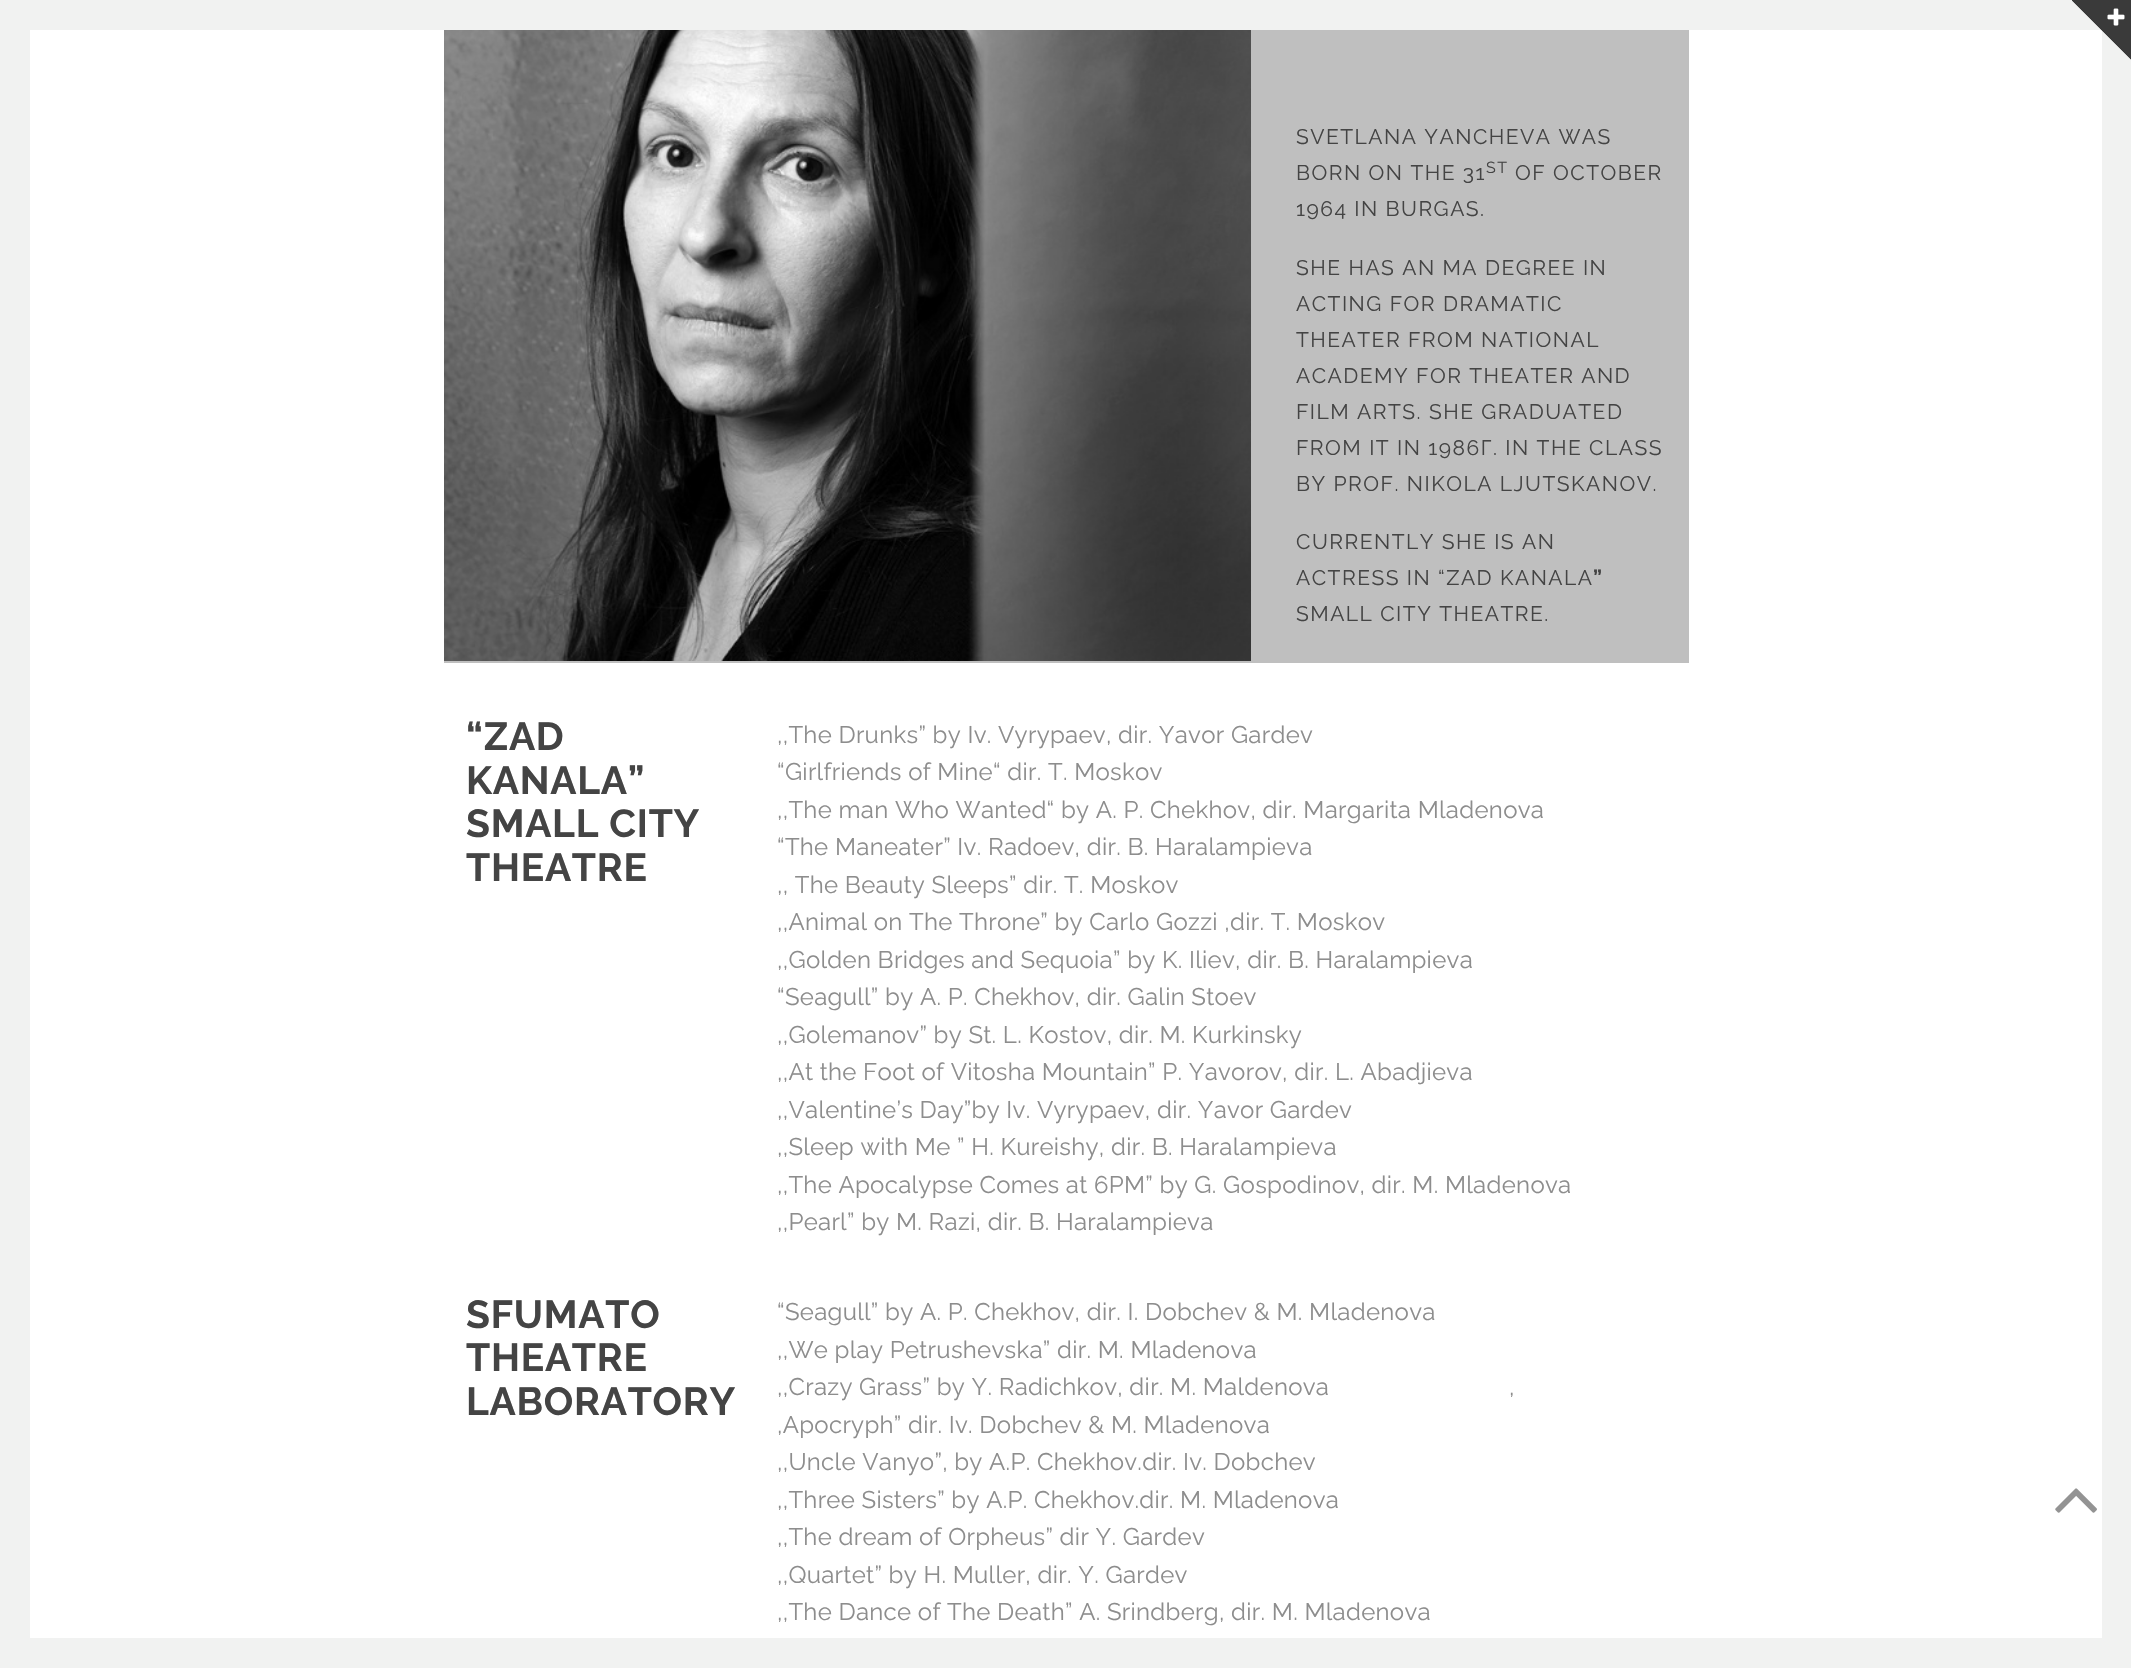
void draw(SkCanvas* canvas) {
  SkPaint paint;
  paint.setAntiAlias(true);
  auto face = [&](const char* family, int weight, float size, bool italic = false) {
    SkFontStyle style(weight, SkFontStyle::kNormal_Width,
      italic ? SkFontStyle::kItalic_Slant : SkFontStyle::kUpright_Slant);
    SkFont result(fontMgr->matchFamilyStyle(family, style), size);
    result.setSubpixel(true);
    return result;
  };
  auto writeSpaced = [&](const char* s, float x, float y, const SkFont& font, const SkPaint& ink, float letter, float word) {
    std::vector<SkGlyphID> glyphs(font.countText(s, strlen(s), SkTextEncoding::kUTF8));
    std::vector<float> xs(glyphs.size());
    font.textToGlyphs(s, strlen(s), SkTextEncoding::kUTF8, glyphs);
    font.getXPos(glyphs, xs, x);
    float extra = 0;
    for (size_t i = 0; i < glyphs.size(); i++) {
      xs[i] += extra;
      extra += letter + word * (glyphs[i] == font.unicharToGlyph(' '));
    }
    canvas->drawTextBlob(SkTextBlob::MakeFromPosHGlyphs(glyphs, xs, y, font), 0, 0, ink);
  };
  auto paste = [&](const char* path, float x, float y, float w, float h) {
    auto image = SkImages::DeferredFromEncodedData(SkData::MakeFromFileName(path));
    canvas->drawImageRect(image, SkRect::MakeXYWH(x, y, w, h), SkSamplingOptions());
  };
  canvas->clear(0xfff1f2f1);
  paint.setColor(0xffffffff);
  canvas->drawRect(SkRect::MakeXYWH(30, 30, 2072, 1608), paint);
  {
    const SkColor colors[] = {0xff3a3a3a, 0x003a3a3a};
    const float stops[] = {0.5f, 0.51f};
    const SkPoint ends[] = {{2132, 0}, {2072, 60}};
    paint.setShader(SkGradientShader::MakeLinear(ends, colors, stops, 2, SkTileMode::kClamp));
    paint.setAlpha(255);
  }
  canvas->drawRect(SkRect::MakeXYWH(2072, 0, 59, 60), paint);
  paste("img/1.png", 2107, 8, 18, 18);
  paint.setShader(nullptr);
  paint.setColor(0xffbfbfbf);
  canvas->drawRect(SkRect::MakeXYWH(444, 30, 1245, 633), paint);
  paste("img/2.png", 444, 30, 807, 631);
  paste("img/3.png", 2055, 1488, 42, 25);
  auto f0 = face("Raleway", 400, 21);
  paint.setColor(0xff444444);
  writeSpaced("SVETLANA YANCHEVA WAS", 1296, 144, f0, paint, 1.5f, 0);
  writeSpaced("BORN ON THE 31", 1296, 180, f0, paint, 1.5f, 0);
  auto f1 = face("Raleway", 400, 16);
  writeSpaced("ST", 1486, 173, f1, paint, 1.5f, 0);
  {
    const struct { const char* s; float x, y; } items[] = {
      {"OF OCTOBER", 1515, 180},
      {"1964 IN BURGAS.", 1296, 216},
      {"SHE HAS AN MA DEGREE IN", 1296, 275},
      {"ACTING FOR DRAMATIC", 1296, 311},
      {"THEATER FROM NATIONAL", 1296, 347},
      {"ACADEMY FOR THEATER AND", 1296, 383},
      {"FILM ARTS. SHE GRADUATED", 1296, 419},
      {"FROM IT IN 1986Г. IN THE CLASS", 1296, 455},
      {"BY PROF. NIKOLA LJUTSKANOV.", 1296, 491},
      {"CURRENTLY SHE IS AN", 1296, 549},
      {"ACTRESS IN “ZAD KANALA", 1296, 585},
    };
    for (auto [s, x, y] : items) {
      writeSpaced(s, x, y, f0, paint, 1.5f, 0);
    }
  }
  auto f2 = face("Raleway", 700, 21);
  writeSpaced("”", 1593, 585, f2, paint, 1.5f, 0);
  writeSpaced("SMALL CITY THEATRE.", 1296, 621, f0, paint, 1.5f, 0);
  auto f3 = face("Raleway", 700, 39);
  {
    const struct { const char* s; float x, y; } items[] = {
      {"“ZAD", 466, 750},
      {"KANALA”", 466, 794},
      {"SMALL CITY", 466, 837},
      {"THEATRE", 466, 881},
    };
    for (auto [s, x, y] : items) {
      writeSpaced(s, x, y, f3, paint, 0.75f, 0);
    }
  }
  auto f4 = face("Raleway", 400, 24);
  paint.setColor(0xff8d8d8d);
  {
    const struct { const char* s; float x, y; } items[] = {
      {",,The Drunks” by Iv. Vyrypaev, dir. Yavor Gardev", 777, 743},
      {"“Girlfriends of Mine“ dir. T. Moskov", 777, 780},
      {",,The man Who Wanted“ by A. P. Chekhov, dir. Margarita Mladenova", 777, 818},
      {"“The Maneater” Iv. Radoev, dir. B. Haralampieva", 777, 855},
      {",, The Beauty Sleeps” dir. T. Moskov", 777, 893},
      {",,Animal on The Throne” by Carlo Gozzi ,dir. T. Moskov", 777, 930},
      {",,Golden Bridges and Sequoia” by K. Iliev, dir. B. Haralampieva", 777, 968},
      {"“Seagull” by A. P. Chekhov, dir. Galin Stoev", 777, 1005},
      {",,Golemanov” by St. L. Kostov, dir. M. Kurkinsky", 777, 1043},
      {",,At the Foot of Vitosha Mountain” P. Yavorov, dir. L. Abadjieva", 777, 1080},
      {",,Valentine’s Day”by Iv. Vyrypaev, dir. Yavor Gardev", 777, 1118},
      {",,Sleep with Me ” H. Kureishy, dir. B. Haralampieva", 777, 1155},
      {",,The Apocalypse Comes at 6PM” by G. Gospodinov, dir. M. Mladenova", 777, 1193},
      {",,Pearl” by M. Razi, dir. B. Haralampieva", 777, 1230},
    };
    for (auto [s, x, y] : items) {
      writeSpaced(s, x, y, f4, paint, 0.3f, 0);
    }
  }
  paint.setColor(0xff444444);
  {
    const struct { const char* s; float x, y; } items[] = {
      {"SFUMATO", 466, 1328},
      {"THEATRE", 466, 1371},
      {"LABORATORY", 466, 1415},
    };
    for (auto [s, x, y] : items) {
      writeSpaced(s, x, y, f3, paint, 0.75f, 0);
    }
  }
  paint.setColor(0xff8d8d8d);
  {
    const struct { const char* s; float x, y; } items[] = {
      {"“Seagull” by A. P. Chekhov, dir. I. Dobchev & M. Mladenova", 777, 1320},
      {",,We play Petrushevska” dir. M. Mladenova", 777, 1358},
      {",,Crazy Grass” by Y. Radichkov, dir. M. Maldenova                            ,", 777, 1395},
      {",Apocryph” dir. Iv. Dobchev & M. Mladenova", 777, 1433},
      {",,Uncle Vanyo”, by A.P. Chekhov.dir. Iv. Dobchev", 777, 1470},
      {",,Three Sisters” by A.P. Chekhov.dir. М. Mladenova", 777, 1508},
      {",,The dream of Orpheus” dir Y. Gardev", 777, 1545},
      {",,Quartet” by H. Muller, dir. Y. Gardev", 777, 1583},
      {",,The Dance of The Death” A. Srindberg, dir. M. Mladenova", 777, 1620},
    };
    for (auto [s, x, y] : items) {
      writeSpaced(s, x, y, f4, paint, 0.3f, 0);
    }
  }
}
